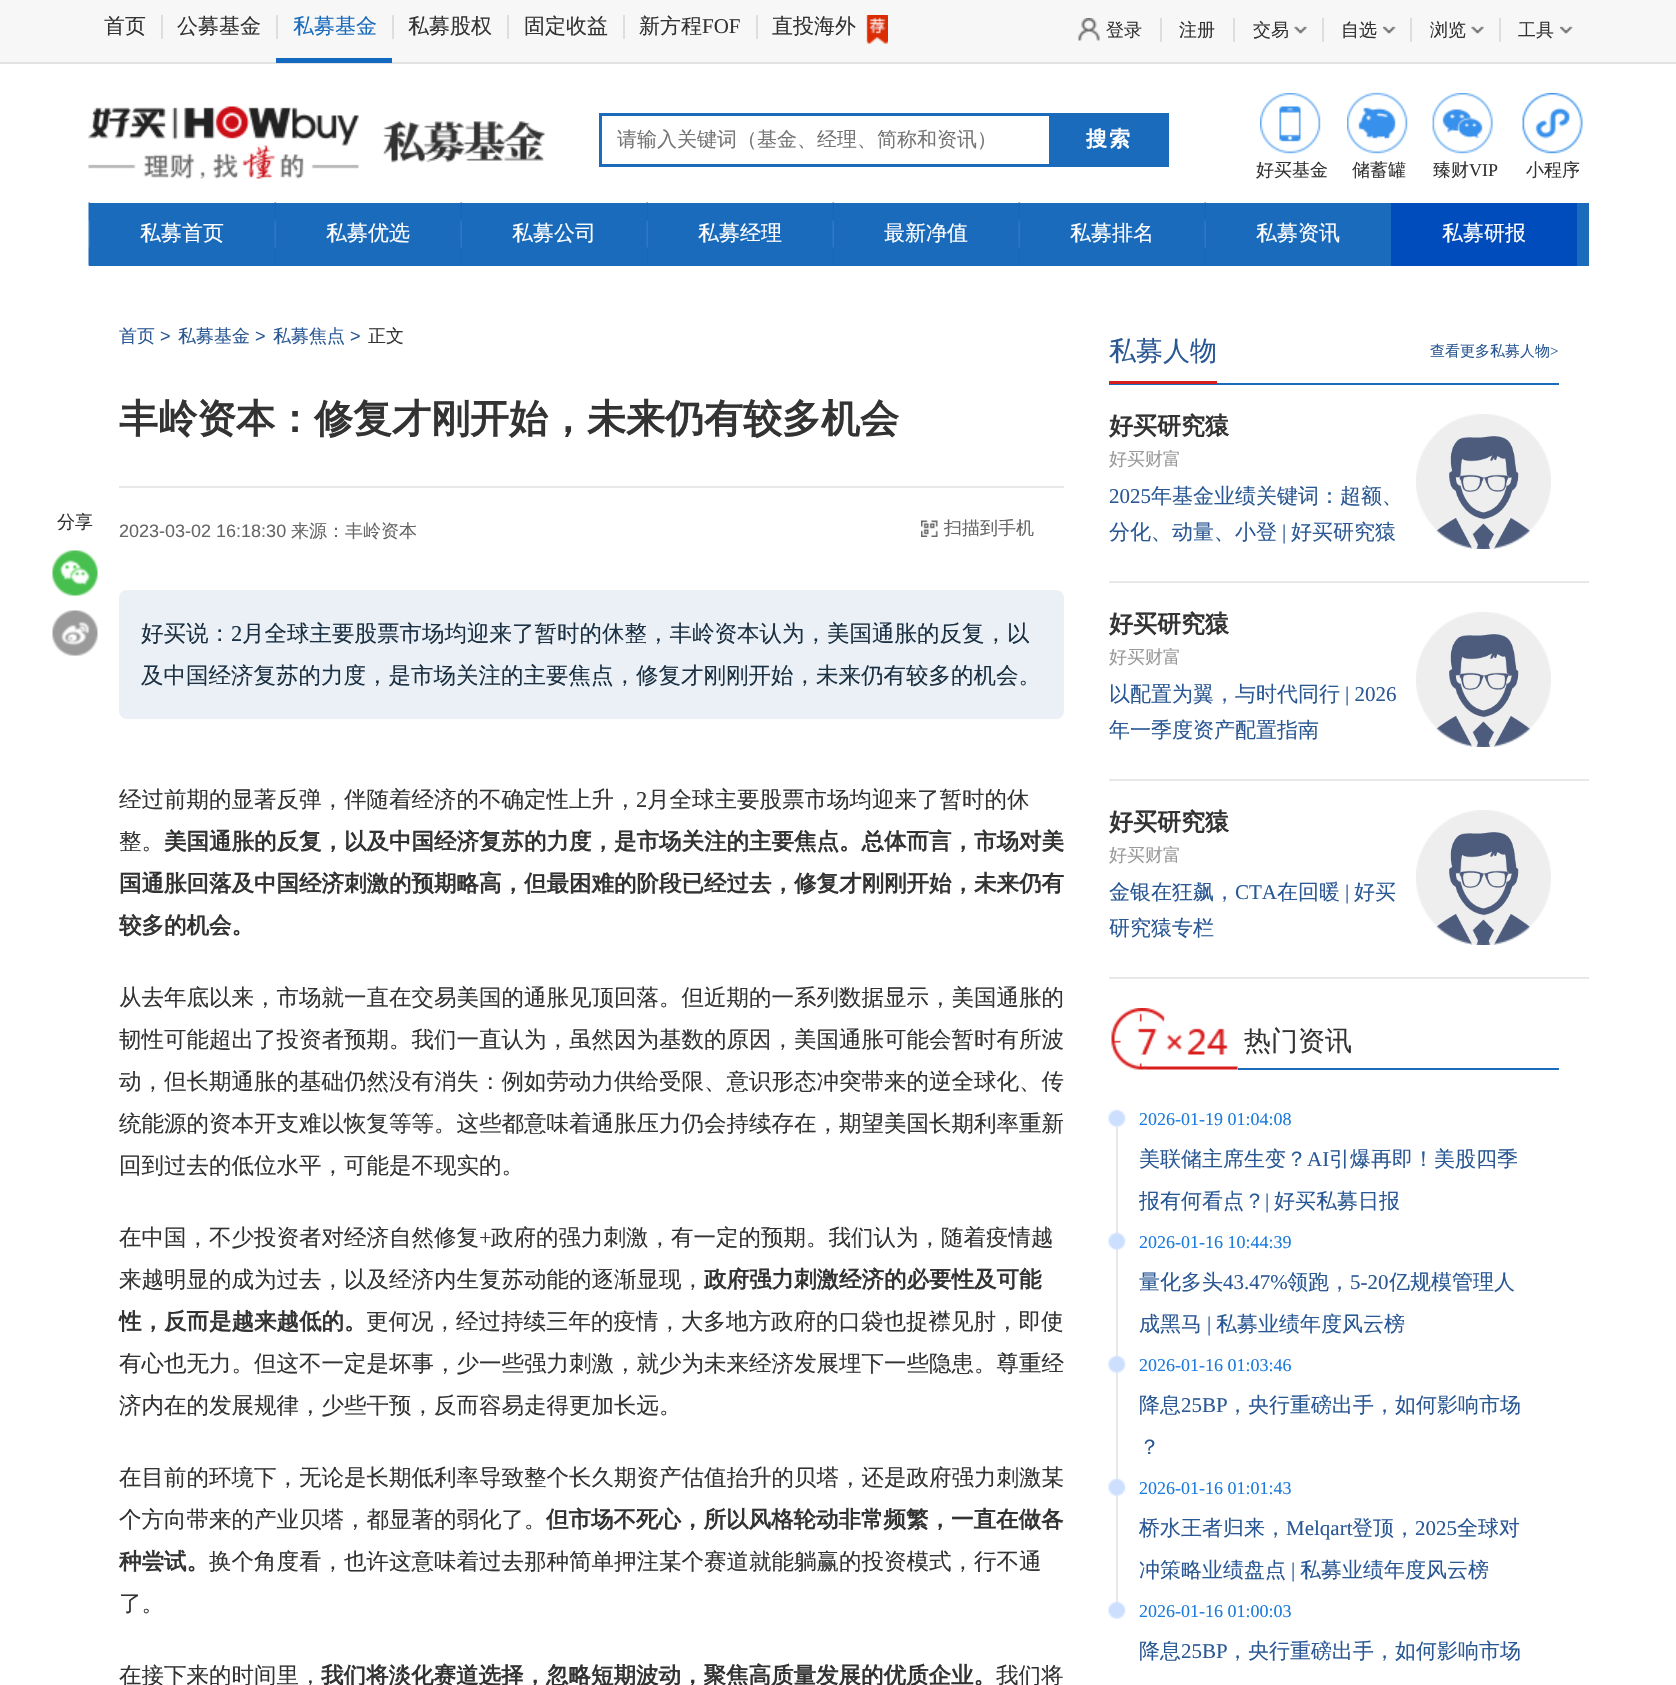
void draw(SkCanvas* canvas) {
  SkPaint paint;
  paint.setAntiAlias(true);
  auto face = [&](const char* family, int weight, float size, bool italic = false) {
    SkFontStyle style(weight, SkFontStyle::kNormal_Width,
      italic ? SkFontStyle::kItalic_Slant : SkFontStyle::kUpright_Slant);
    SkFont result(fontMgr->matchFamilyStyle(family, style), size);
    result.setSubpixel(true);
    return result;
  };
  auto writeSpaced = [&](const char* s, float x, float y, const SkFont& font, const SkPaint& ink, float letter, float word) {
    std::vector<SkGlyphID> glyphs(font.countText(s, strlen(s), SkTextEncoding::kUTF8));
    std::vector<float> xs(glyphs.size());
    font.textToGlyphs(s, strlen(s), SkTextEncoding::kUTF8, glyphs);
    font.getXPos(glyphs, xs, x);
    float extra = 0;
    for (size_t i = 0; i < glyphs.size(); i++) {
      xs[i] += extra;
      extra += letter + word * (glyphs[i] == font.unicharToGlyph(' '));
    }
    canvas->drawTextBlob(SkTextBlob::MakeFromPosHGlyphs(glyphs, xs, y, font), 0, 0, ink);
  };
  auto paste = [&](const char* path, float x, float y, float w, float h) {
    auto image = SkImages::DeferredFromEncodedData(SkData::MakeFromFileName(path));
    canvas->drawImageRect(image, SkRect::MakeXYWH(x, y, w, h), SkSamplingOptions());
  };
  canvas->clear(0xffffffff);
  {
    const struct { float x, y, w, h; SkColor color; } items[] = {
      {0, 0, 1676, 62, 0xfff7f7f7},
      {0, 62, 1676, 2, 0xffe2e2e2},
      {161, 15, 2, 24, 0xffdedede},
      {276, 15, 2, 24, 0xffdedede},
      {392, 15, 2, 24, 0xffdedede},
      {507, 15, 2, 24, 0xffdedede},
      {623, 15, 2, 24, 0xffdedede},
      {756, 15, 2, 24, 0xffdedede},
    };
    for (auto [x, y, w, h, color] : items) {
      paint.setColor(color);
      canvas->drawRect(SkRect::MakeXYWH(x, y, w, h), paint);
    }
  }
  paste("img/1.png", 866, 15, 22, 29);
  paint.setColor(0xff1269bf);
  canvas->drawRect(SkRect::MakeXYWH(276, 58, 116, 5), paint);
  paste("img/2.png", 1078, 18, 22, 23);
  paint.setColor(0xffdedede);
  canvas->drawRect(SkRect::MakeXYWH(1160, 18, 2, 24), paint);
  paste("img/3.png", 1294, 26, 13, 8);
  canvas->drawRect(SkRect::MakeXYWH(1233, 18, 2, 24), paint);
  paste("img/4.png", 1383, 26, 13, 8);
  canvas->drawRect(SkRect::MakeXYWH(1322, 18, 2, 24), paint);
  paste("img/3.png", 1471, 26, 13, 8);
  canvas->drawRect(SkRect::MakeXYWH(1410, 18, 2, 24), paint);
  paste("img/4.png", 1560, 26, 13, 8);
  canvas->drawRect(SkRect::MakeXYWH(1499, 18, 2, 24), paint);
  paste("img/5.png", 88, 106, 271, 73);
  paste("img/6.png", 383, 121, 162, 42);
  {
    const struct { float x, y, w, h; SkColor color; } items[] = {
      {599, 113, 570, 3, 0xff1b6bbc},
      {599, 164, 570, 3, 0xff1b6bbc},
      {599, 113, 3, 54, 0xff1b6bbc},
      {1049, 116, 120, 48, 0xff1b6bbc},
    };
    for (auto [x, y, w, h, color] : items) {
      paint.setColor(color);
      canvas->drawRect(SkRect::MakeXYWH(x, y, w, h), paint);
    }
  }
  paste("img/7.png", 1260, 93, 61, 61);
  paste("img/8.png", 1347, 92, 61, 62);
  paste("img/9.png", 1432, 93, 61, 61);
  paste("img/10.png", 1522, 93, 61, 61);
  canvas->drawRect(SkRect::MakeXYWH(89, 203, 1500, 63), paint);
  paste("img/11.png", 88, 202, 2, 64);
  paste("img/12.png", 274, 202, 2, 64);
  paste("img/12.png", 460, 202, 2, 64);
  paste("img/12.png", 646, 202, 2, 64);
  paste("img/12.png", 832, 202, 2, 64);
  paste("img/12.png", 1018, 202, 2, 64);
  paste("img/12.png", 1204, 202, 2, 64);
  paint.setColor(0xff004cbd);
  canvas->drawRect(SkRect::MakeXYWH(1391, 203, 186, 63), paint);
  paste("img/13.png", 52, 550, 46, 46);
  paste("img/14.png", 52, 610, 46, 46);
  paint.setColor(0xffe8e8e8);
  canvas->drawRect(SkRect::MakeXYWH(119, 486, 945, 2), paint);
  paste("img/15.png", 921, 520, 17, 17);
  paint.setColor(0xffeaf0f5);
  canvas->drawRoundRect(SkRect::MakeXYWH(119, 590, 945, 129), 8, 8, paint);
  {
    const struct { float x, y, w, h; SkColor color; } items[] = {
      {1109, 383, 450, 2, 0xff1b6bbc},
      {1109, 381, 108, 3, 0xffd91c1c},
      {1109, 581, 480, 2, 0xffe8e8e8},
    };
    for (auto [x, y, w, h, color] : items) {
      paint.setColor(color);
      canvas->drawRect(SkRect::MakeXYWH(x, y, w, h), paint);
    }
  }
  paste("img/16.png", 1416, 414, 135, 135);
  paste("img/17.png", 1416, 414, 135, 135);
  canvas->drawRect(SkRect::MakeXYWH(1109, 779, 480, 2), paint);
  paste("img/16.png", 1416, 612, 135, 135);
  paste("img/17.png", 1416, 612, 135, 135);
  canvas->drawRect(SkRect::MakeXYWH(1109, 977, 480, 2), paint);
  paste("img/16.png", 1416, 810, 135, 135);
  paste("img/17.png", 1416, 810, 135, 135);
  paste("img/18.png", 1111, 1008, 127, 62);
  paint.setColor(0xff1b6bbc);
  canvas->drawRect(SkRect::MakeXYWH(1238, 1068, 321, 2), paint);
  paint.setColor(0xffe8e8e8);
  canvas->drawRect(SkRect::MakeXYWH(1116, 1124, 2, 480), paint);
  paste("img/19.png", 1108, 1109, 18, 18);
  paste("img/20.png", 1108, 1232, 18, 18);
  paste("img/20.png", 1108, 1355, 18, 18);
  paste("img/20.png", 1108, 1478, 18, 18);
  paste("img/21.png", 1108, 1601, 18, 18);
  auto f0 = face("WenQuanYi Zen Hei", 500, 21);
  paint.setColor(0xff333333);
  canvas->drawString("首页", 104, 33, f0, paint);
  canvas->drawString("公募基金", 177, 33, f0, paint);
  paint.setColor(0xff1b6bbc);
  canvas->drawString("私募基金", 293, 33, f0, paint);
  paint.setColor(0xff333333);
  {
    const struct { const char* s; float x, y; } items[] = {
      {"私募股权", 408, 33},
      {"固定收益", 524, 33},
      {"新方程", 639, 33},
    };
    for (auto [s, x, y] : items) {
      canvas->drawString(s, x, y, f0, paint);
    }
  }
  auto f1 = face("Liberation Serif", 400, 21);
  canvas->drawString("FOF", 702, 33, f1, paint);
  canvas->drawString("直投海外", 772, 33, f0, paint);
  auto f2 = face("WenQuanYi Zen Hei", 500, 18);
  {
    const struct { const char* s; float x, y; } items[] = {
      {"登录", 1106, 36},
      {"注册", 1179, 36},
      {"交易", 1253, 36},
      {"自选", 1341, 36},
      {"浏览", 1430, 36},
      {"工具", 1518, 36},
    };
    for (auto [s, x, y] : items) {
      canvas->drawString(s, x, y, f2, paint);
    }
  }
  auto f3 = face("WenQuanYi Zen Hei", 500, 20);
  paint.setColor(0xff757575);
  canvas->drawString("请输入关键词（基金、经理、简称和资讯）", 617, 146, f3, paint);
  auto f4 = face("WenQuanYi Zen Hei", 700, 21);
  paint.setColor(0xffffffff);
  writeSpaced("搜索", 1086, 146, f4, paint, 2, 0);
  paint.setColor(0xff333333);
  {
    const struct { const char* s; float x, y; } items[] = {
      {"好买基金", 1256, 176},
      {"储蓄罐", 1352, 176},
      {"臻财", 1433, 176},
    };
    for (auto [s, x, y] : items) {
      canvas->drawString(s, x, y, f2, paint);
    }
  }
  auto f5 = face("Liberation Serif", 400, 18);
  canvas->drawString("VIP", 1469, 176, f5, paint);
  canvas->drawString("小程序", 1526, 176, f2, paint);
  paint.setColor(0xffffffff);
  {
    const struct { const char* s; float x, y; } items[] = {
      {"私募首页", 140, 240},
      {"私募优选", 326, 240},
      {"私募公司", 512, 240},
      {"私募经理", 698, 240},
      {"最新净值", 884, 240},
      {"私募排名", 1070, 240},
      {"私募资讯", 1256, 240},
      {"私募研报", 1442, 240},
    };
    for (auto [s, x, y] : items) {
      canvas->drawString(s, x, y, f0, paint);
    }
  }
  paint.setColor(0xff2a5894);
  canvas->drawString("首页", 119, 342, f2, paint);
  auto f6 = face("Liberation Sans", 400, 18);
  canvas->drawString(">", 160, 342, f6, paint);
  canvas->drawString("私募基金", 178, 342, f2, paint);
  canvas->drawString(">", 255, 342, f6, paint);
  canvas->drawString("私募焦点", 273, 342, f2, paint);
  canvas->drawString(">", 350, 342, f6, paint);
  paint.setColor(0xff333333);
  canvas->drawString("正文", 368, 342, f2, paint);
  canvas->drawString("分享", 57, 528, f2, paint);
  auto f7 = face("WenQuanYi Zen Hei", 700, 39);
  canvas->drawString("丰岭资本：修复才刚开始，未来仍有较多机会", 119, 432, f7, paint);
  paint.setColor(0xff666666);
  canvas->drawString("2023-03-02 16:18:30", 119, 537, f6, paint);
  canvas->drawString("来源：丰岭资本", 291, 537, f2, paint);
  canvas->drawString("扫描到手机", 944, 534, f2, paint);
  auto f8 = face("WenQuanYi Zen Hei", 500, 22.5f);
  paint.setColor(0xff1b3042);
  canvas->drawString("好买说：", 141, 641, f8, paint);
  auto f9 = face("Liberation Serif", 400, 22.5f);
  canvas->drawString("2", 231, 641, f9, paint);
  canvas->drawString("月全球主要股票市场均迎来了暂时的休整，丰岭资本认为，美国通胀的反复，以", 242, 641, f8, paint);
  canvas->drawString("及中国经济复苏的力度，是市场关注的主要焦点，修复才刚刚开始，未来仍有较多的机会。", 141, 683, f8, paint);
  paint.setColor(0xff333333);
  canvas->drawString("经过前期的显著反弹，伴随着经济的不确定性上升，", 119, 807, f8, paint);
  canvas->drawString("2", 636, 807, f9, paint);
  canvas->drawString("月全球主要股票市场均迎来了暂时的休", 647, 807, f8, paint);
  canvas->drawString("整。", 119, 849, f8, paint);
  auto f10 = face("WenQuanYi Zen Hei", 700, 22.5f);
  {
    const struct { const char* s; float x, y; } items[] = {
      {"美国通胀的反复，以及中国经济复苏的力度，是市场关注的主要焦点。总体而言，市场对美", 164, 849},
      {"国通胀回落及中国经济刺激的预期略高，但最困难的阶段已经过去，修复才刚刚开始，未来仍有", 119, 891},
      {"较多的机会。", 119, 933},
    };
    for (auto [s, x, y] : items) {
      canvas->drawString(s, x, y, f10, paint);
    }
  }
  {
    const struct { const char* s; float x, y; } items[] = {
      {"从去年底以来，市场就一直在交易美国的通胀见顶回落。但近期的一系列数据显示，美国通胀的", 119, 1005},
      {"韧性可能超出了投资者预期。我们一直认为，虽然因为基数的原因，美国通胀可能会暂时有所波", 119, 1047},
      {"动，但长期通胀的基础仍然没有消失：例如劳动力供给受限、意识形态冲突带来的逆全球化、传", 119, 1089},
      {"统能源的资本开支难以恢复等等。这些都意味着通胀压力仍会持续存在，期望美国长期利率重新", 119, 1131},
      {"回到过去的低位水平，可能是不现实的。", 119, 1173},
      {"在中国，不少投资者对经济自然修复", 119, 1245},
    };
    for (auto [s, x, y] : items) {
      canvas->drawString(s, x, y, f8, paint);
    }
  }
  canvas->drawString("+", 479, 1245, f9, paint);
  canvas->drawString("政府的强力刺激，有一定的预期。我们认为，随着疫情越", 491, 1245, f8, paint);
  canvas->drawString("来越明显的成为过去，以及经济内生复苏动能的逐渐显现，", 119, 1287, f8, paint);
  canvas->drawString("政府强力刺激经济的必要性及可能", 704, 1287, f10, paint);
  canvas->drawString("性，反而是越来越低的。", 119, 1329, f10, paint);
  {
    const struct { const char* s; float x, y; } items[] = {
      {"更何况，经过持续三年的疫情，大多地方政府的口袋也捉襟见肘，即使", 366, 1329},
      {"有心也无力。但这不一定是坏事，少一些强力刺激，就少为未来经济发展埋下一些隐患。尊重经", 119, 1371},
      {"济内在的发展规律，少些干预，反而容易走得更加长远。", 119, 1413},
      {"在目前的环境下，无论是长期低利率导致整个长久期资产估值抬升的贝塔，还是政府强力刺激某", 119, 1485},
      {"个方向带来的产业贝塔，都显著的弱化了。", 119, 1527},
    };
    for (auto [s, x, y] : items) {
      canvas->drawString(s, x, y, f8, paint);
    }
  }
  canvas->drawString("但市场不死心，所以风格轮动非常频繁，一直在做各", 546, 1527, f10, paint);
  canvas->drawString("种尝试。", 119, 1569, f10, paint);
  {
    const struct { const char* s; float x, y; } items[] = {
      {"换个角度看，也许这意味着过去那种简单押注某个赛道就能躺赢的投资模式，行不通", 209, 1569},
      {"了。", 119, 1611},
      {"在接下来的时间里，", 119, 1683},
    };
    for (auto [s, x, y] : items) {
      canvas->drawString(s, x, y, f8, paint);
    }
  }
  canvas->drawString("我们将淡化赛道选择，忽略短期波动，聚焦高质量发展的优质企业。", 321, 1683, f10, paint);
  canvas->drawString("我们将", 996, 1683, f8, paint);
  auto f11 = face("WenQuanYi Zen Hei", 500, 27);
  paint.setColor(0xff2a5894);
  canvas->drawString("私募人物", 1109, 360, f11, paint);
  auto f12 = face("WenQuanYi Zen Hei", 500, 15);
  canvas->drawString("查看更多私募人物", 1430, 356, f12, paint);
  auto f13 = face("Liberation Serif", 400, 15);
  canvas->drawString(">", 1550, 356, f13, paint);
  auto f14 = face("WenQuanYi Zen Hei", 700, 24);
  paint.setColor(0xff333333);
  canvas->drawString("好买研究猿", 1109, 434, f14, paint);
  paint.setColor(0xff999999);
  canvas->drawString("好买财富", 1109, 465, f2, paint);
  paint.setColor(0xff2a5894);
  canvas->drawString("2025", 1109, 503, f1, paint);
  canvas->drawString("年基金业绩关键词：超额、", 1151, 503, f0, paint);
  canvas->drawString("分化、动量、小登", 1109, 539, f0, paint);
  canvas->drawString("|", 1282, 539, f1, paint);
  canvas->drawString("好买研究猿", 1291, 539, f0, paint);
  paint.setColor(0xff333333);
  canvas->drawString("好买研究猿", 1109, 632, f14, paint);
  paint.setColor(0xff999999);
  canvas->drawString("好买财富", 1109, 663, f2, paint);
  paint.setColor(0xff2a5894);
  canvas->drawString("以配置为翼，与时代同行", 1109, 701, f0, paint);
  canvas->drawString("| 2026", 1345, 701, f1, paint);
  canvas->drawString("年一季度资产配置指南", 1109, 737, f0, paint);
  paint.setColor(0xff333333);
  canvas->drawString("好买研究猿", 1109, 830, f14, paint);
  paint.setColor(0xff999999);
  canvas->drawString("好买财富", 1109, 861, f2, paint);
  paint.setColor(0xff2a5894);
  canvas->drawString("金银在狂飙，", 1109, 899, f0, paint);
  canvas->drawString("CTA", 1235, 899, f1, paint);
  canvas->drawString("在回暖", 1277, 899, f0, paint);
  canvas->drawString("|", 1345, 899, f1, paint);
  canvas->drawString("好买", 1354, 899, f0, paint);
  canvas->drawString("研究猿专栏", 1109, 935, f0, paint);
  paint.setColor(0xff333333);
  canvas->drawString("热门资讯", 1244, 1050, f11, paint);
  paint.setColor(0xff1b7bdc);
  canvas->drawString("2026-01-19 01:04:08", 1139, 1125, f5, paint);
  paint.setColor(0xff2a5894);
  canvas->drawString("美联储主席生变？", 1139, 1166, f0, paint);
  canvas->drawString("AI", 1307, 1166, f1, paint);
  canvas->drawString("引爆再即！美股四季", 1329, 1166, f0, paint);
  canvas->save();
  canvas->clipRect(SkRect::MakeXYWH(1139, 1139, 390, 84));
  canvas->drawString("报有何看点？", 1139, 1208, f0, paint);
  canvas->restore();
  canvas->drawString("|", 1265, 1208, f1, paint);
  canvas->drawString("好买私募日报", 1274, 1208, f0, paint);
  paint.setColor(0xff1b7bdc);
  canvas->drawString("2026-01-16 10:44:39", 1139, 1248, f5, paint);
  paint.setColor(0xff2a5894);
  canvas->drawString("量化多头", 1139, 1289, f0, paint);
  canvas->drawString("43.47%", 1223, 1289, f1, paint);
  canvas->drawString("领跑，", 1287, 1289, f0, paint);
  canvas->drawString("5-20", 1350, 1289, f1, paint);
  canvas->drawString("亿规模管理人", 1389, 1289, f0, paint);
  canvas->drawString("成黑马", 1139, 1331, f0, paint);
  canvas->drawString("|", 1207, 1331, f1, paint);
  canvas->drawString("私募业绩年度风云榜", 1216, 1331, f0, paint);
  paint.setColor(0xff1b7bdc);
  canvas->drawString("2026-01-16 01:03:46", 1139, 1371, f5, paint);
  paint.setColor(0xff2a5894);
  canvas->drawString("降息", 1139, 1412, f0, paint);
  canvas->drawString("25BP", 1181, 1412, f1, paint);
  canvas->drawString("，央行重磅出手，如何影响市场", 1227, 1412, f0, paint);
  canvas->drawString("？", 1139, 1454, f0, paint);
  paint.setColor(0xff1b7bdc);
  canvas->drawString("2026-01-16 01:01:43", 1139, 1494, f5, paint);
  paint.setColor(0xff2a5894);
  canvas->drawString("桥水王者归来，", 1139, 1535, f0, paint);
  canvas->drawString("Melqart", 1286, 1535, f1, paint);
  canvas->drawString("登顶，", 1352, 1535, f0, paint);
  canvas->drawString("2025", 1415, 1535, f1, paint);
  canvas->drawString("全球对", 1457, 1535, f0, paint);
  canvas->drawString("冲策略业绩盘点", 1139, 1577, f0, paint);
  canvas->drawString("|", 1291, 1577, f1, paint);
  canvas->drawString("私募业绩年度风云榜", 1300, 1577, f0, paint);
  paint.setColor(0xff1b7bdc);
  canvas->drawString("2026-01-16 01:00:03", 1139, 1617, f5, paint);
  paint.setColor(0xff2a5894);
  canvas->drawString("降息", 1139, 1658, f0, paint);
  canvas->drawString("25BP", 1181, 1658, f1, paint);
  canvas->drawString("，央行重磅出手，如何影响市场", 1227, 1658, f0, paint);
}
